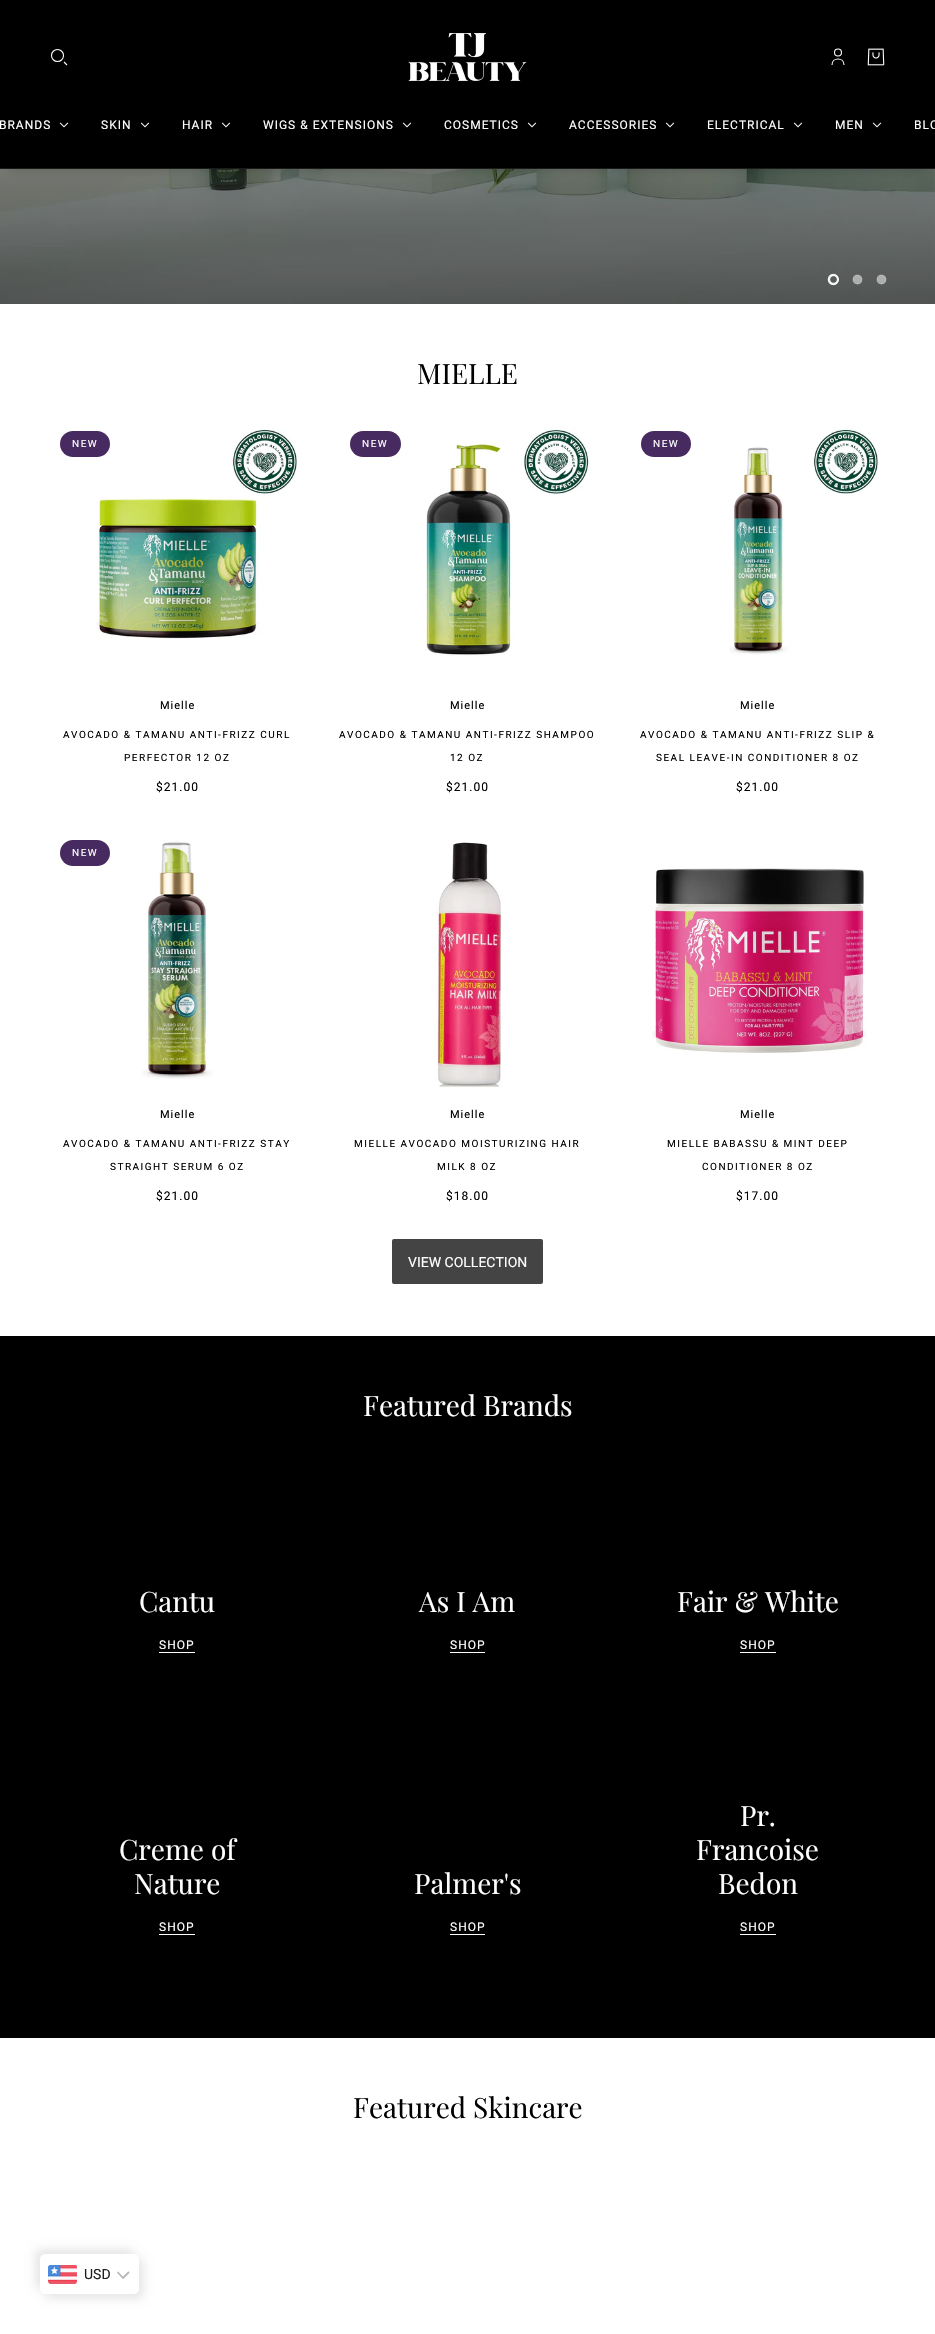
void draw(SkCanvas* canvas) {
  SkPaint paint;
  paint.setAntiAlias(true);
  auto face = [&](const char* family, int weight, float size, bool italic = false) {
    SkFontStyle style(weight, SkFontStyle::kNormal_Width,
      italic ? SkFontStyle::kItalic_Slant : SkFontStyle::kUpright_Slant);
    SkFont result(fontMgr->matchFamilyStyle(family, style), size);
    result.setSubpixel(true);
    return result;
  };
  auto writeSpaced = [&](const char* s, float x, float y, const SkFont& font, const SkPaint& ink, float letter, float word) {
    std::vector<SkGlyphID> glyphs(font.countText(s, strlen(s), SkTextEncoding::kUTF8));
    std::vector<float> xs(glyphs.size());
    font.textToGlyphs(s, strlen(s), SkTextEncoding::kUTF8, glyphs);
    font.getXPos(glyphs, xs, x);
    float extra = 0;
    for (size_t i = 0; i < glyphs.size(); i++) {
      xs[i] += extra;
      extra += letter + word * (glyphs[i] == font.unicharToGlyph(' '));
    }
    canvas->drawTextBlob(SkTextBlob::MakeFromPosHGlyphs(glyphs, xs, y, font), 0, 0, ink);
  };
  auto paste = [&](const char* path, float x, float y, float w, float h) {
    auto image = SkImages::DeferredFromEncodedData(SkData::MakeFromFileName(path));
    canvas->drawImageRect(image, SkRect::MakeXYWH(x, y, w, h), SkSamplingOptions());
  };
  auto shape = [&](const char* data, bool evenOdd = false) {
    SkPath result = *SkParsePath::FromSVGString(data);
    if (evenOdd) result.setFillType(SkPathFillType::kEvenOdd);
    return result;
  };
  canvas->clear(0xffffffff);
  paste("img/4.png", 0, 169, 935, 135);
  {
    const SkColor colors[] = {0x00000000, 0xa6000000};
    const float stops[] = {0, 1};
    const SkPoint ends[] = {{467, -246}, {468, 304}};
    paint.setShader(SkGradientShader::MakeLinear(ends, colors, stops, 2, SkTileMode::kClamp));
    paint.setAlpha(255);
  }
  canvas->drawRect(SkRect::MakeXYWH(0, 169, 935, 135), paint);
  paint.setShader(nullptr);
  paint.setColor(0x33000000);
  paint.setMaskFilter(SkMaskFilter::MakeBlur(kNormal_SkBlurStyle, 5));
  canvas->drawRect(SkRect::MakeXYWH(10, 20, 915, 149), paint);
  paint.setMaskFilter(nullptr);
  paint.setColor(0xff000000);
  canvas->drawRect(SkRect::MakeXYWH(0, 0, 935, 168), paint);
  paint.setStroke(true);
  paint.setStrokeWidth(1.1f);
  paint.setColor(0xffffffff);
  canvas->drawCircle(57.5f, 55.5f, 6, paint);
  canvas->drawPath(shape("M64 62L67 65"), paint);
  paste("img/1.png", 408, 33, 119, 48);
  canvas->drawCircle(838, 52.5f, 3.5f, paint);
  canvas->drawPath(shape("M832 65C832 57 844 57 844 65"), paint);
  paste("img/2.png", 867, 48, 18, 18);
  paste("img/3.png", 59, 122, 10, 6);
  paste("img/3.png", 140, 122, 10, 6);
  paste("img/3.png", 221, 122, 10, 6);
  paste("img/3.png", 402, 122, 10, 6);
  paste("img/3.png", 527, 122, 10, 6);
  paste("img/3.png", 665, 122, 10, 6);
  paste("img/3.png", 793, 122, 10, 6);
  paste("img/3.png", 872, 122, 10, 6);
  paint.setStroke(false);
  paint.setColor(0xff1a1a1a);
  canvas->drawRect(SkRect::MakeXYWH(0, 168, 935, 1), paint);
  paste("img/5.png", 827, 273, 12, 13);
  paste("img/6.png", 852, 274, 11, 11);
  paste("img/6.png", 876, 274, 11, 11);
  paste("img/7.png", 96, 429, 202, 210);
  paint.setColor(0xff462a60);
  canvas->drawRoundRect(SkRect::MakeXYWH(60, 431, 50, 26), 13, 13, paint);
  canvas->drawRoundRect(SkRect::MakeXYWH(350, 431, 51, 26), 13, 13, paint);
  paste("img/8.png", 426, 426, 165, 230);
  canvas->drawRoundRect(SkRect::MakeXYWH(641, 431, 50, 26), 13, 13, paint);
  paste("img/9.png", 729, 426, 150, 229);
  canvas->drawRoundRect(SkRect::MakeXYWH(60, 840, 50, 26), 13, 13, paint);
  paste("img/10.png", 141, 840, 72, 239);
  paste("img/11.png", 436, 842, 67, 246);
  paste("img/12.png", 652, 868, 215, 185);
  paint.setColor(0xff444444);
  canvas->drawRoundRect(SkRect::MakeXYWH(392, 1239, 151, 45), 2, 2, paint);
  {
    const struct { float x, y, w, h; SkColor color; } items[] = {
      {0, 1336, 935, 702, 0xff000000},
      {159, 1652, 36, 1, 0xffffffff},
      {450, 1652, 35, 1, 0xffffffff},
      {740, 1652, 36, 1, 0xffffffff},
      {159, 1934, 36, 1, 0xffffffff},
      {450, 1934, 35, 1, 0xffffffff},
      {740, 1934, 36, 1, 0xffffffff},
    };
    for (auto [x, y, w, h, color] : items) {
      paint.setColor(color);
      canvas->drawRect(SkRect::MakeXYWH(x, y, w, h), paint);
    }
  }
  paint.setColor(0xffe8e8e8);
  paint.setMaskFilter(SkMaskFilter::MakeBlur(kNormal_SkBlurStyle, 5));
  canvas->drawRoundRect(SkRect::MakeXYWH(35, 2249, 99, 40), 5, 5, paint);
  paint.setMaskFilter(nullptr);
  paint.setMaskFilter(SkMaskFilter::MakeBlur(kNormal_SkBlurStyle, 5));
  canvas->drawRoundRect(SkRect::MakeXYWH(45, 2259, 99, 40), 5, 5, paint);
  paint.setMaskFilter(nullptr);
  paint.setColor(0xffffffff);
  canvas->drawRoundRect(SkRect::MakeXYWH(40, 2254, 99, 40), 5, 5, paint);
  paste("img/13.png", 48, 2265, 29, 19);
  paint.setStroke(true);
  paint.setStrokeWidth(1.8f);
  paint.setStrokeCap(SkPaint::kRound_Cap);
  paint.setStrokeJoin(SkPaint::kRound_Join);
  paint.setColor(0xffb7b7b7);
  canvas->drawPath(shape("M118 2272.5L123 2278L128.5 2272.5"), paint);
  auto f0 = face("Roboto", 400, 12);
  paint.setStroke(false);
  paint.setColor(0xffffffff);
  {
    const struct { const char* s; float x, y; } items[] = {
      {"BRANDS", -1, 129},
      {"SKIN", 101, 129},
      {"HAIR", 182, 129},
      {"WIGS & EXTENSIONS", 263, 129},
      {"COSMETICS", 444, 129},
      {"ACCESSORIES", 569, 129},
      {"ELECTRICAL", 707, 129},
      {"MEN", 835, 129},
      {"BLO", 914, 129},
    };
    for (auto [s, x, y] : items) {
      writeSpaced(s, x, y, f0, paint, 1, 0);
    }
  }
  auto f1 = face("Playfair Display", 400, 28);
  paint.setColor(0xff000000);
  canvas->drawString("MIELLE", 417, 384, f1, paint);
  auto f2 = face("Roboto", 400, 10);
  paint.setColor(0xffffffff);
  writeSpaced("NEW", 72, 447, f2, paint, 1.5f, 0);
  auto f3 = face("Roboto", 400, 11);
  paint.setColor(0xff000000);
  writeSpaced("Mielle", 160, 709, f3, paint, 1, 0);
  writeSpaced("AVOCADO & TAMANU ANTI-FRIZZ CURL", 63, 738, f2, paint, 1.5f, 0);
  writeSpaced("PERFECTOR 12 OZ", 124, 761, f2, paint, 1.5f, 0);
  writeSpaced("$21.00", 156, 791, f0, paint, 1, 0);
  paint.setColor(0xffffffff);
  writeSpaced("NEW", 362, 447, f2, paint, 1.5f, 0);
  paint.setColor(0xff000000);
  writeSpaced("Mielle", 450, 709, f3, paint, 1, 0);
  writeSpaced("AVOCADO & TAMANU ANTI-FRIZZ SHAMPOO", 339, 738, f2, paint, 1.5f, 0);
  writeSpaced("12 OZ", 450, 761, f2, paint, 1.5f, 0);
  writeSpaced("$21.00", 446, 791, f0, paint, 1, 0);
  paint.setColor(0xffffffff);
  writeSpaced("NEW", 653, 447, f2, paint, 1.5f, 0);
  paint.setColor(0xff000000);
  writeSpaced("Mielle", 740, 709, f3, paint, 1, 0);
  writeSpaced("AVOCADO & TAMANU ANTI-FRIZZ SLIP &", 640, 738, f2, paint, 1.5f, 0);
  writeSpaced("SEAL LEAVE-IN CONDITIONER 8 OZ", 656, 761, f2, paint, 1.5f, 0);
  writeSpaced("$21.00", 736, 791, f0, paint, 1, 0);
  paint.setColor(0xffffffff);
  writeSpaced("NEW", 72, 856, f2, paint, 1.5f, 0);
  paint.setColor(0xff000000);
  writeSpaced("Mielle", 160, 1118, f3, paint, 1, 0);
  writeSpaced("AVOCADO & TAMANU ANTI-FRIZZ STAY", 63, 1147, f2, paint, 1.5f, 0);
  writeSpaced("STRAIGHT SERUM 6 OZ", 110, 1170, f2, paint, 1.5f, 0);
  writeSpaced("$21.00", 156, 1200, f0, paint, 1, 0);
  writeSpaced("Mielle", 450, 1118, f3, paint, 1, 0);
  writeSpaced("MIELLE AVOCADO MOISTURIZING HAIR", 354, 1147, f2, paint, 1.5f, 0);
  writeSpaced("MILK 8 OZ", 437, 1170, f2, paint, 1.5f, 0);
  writeSpaced("$18.00", 446, 1200, f0, paint, 1, 0);
  writeSpaced("Mielle", 740, 1118, f3, paint, 1, 0);
  writeSpaced("MIELLE BABASSU & MINT DEEP", 667, 1147, f2, paint, 1.5f, 0);
  writeSpaced("CONDITIONER 8 OZ", 702, 1170, f2, paint, 1.5f, 0);
  writeSpaced("$17.00", 736, 1200, f0, paint, 1, 0);
  auto f4 = face("Roboto", 400, 14);
  paint.setColor(0xffffffff);
  canvas->drawString("VIEW COLLECTION", 408, 1267, f4, paint);
  canvas->drawString("Featured Brands", 363, 1416, f1, paint);
  canvas->drawString("Cantu", 139, 1612, f1, paint);
  writeSpaced("SHOP", 159, 1649, f0, paint, 1, 0);
  canvas->drawString("As I Am", 419, 1612, f1, paint);
  writeSpaced("SHOP", 450, 1649, f0, paint, 1, 0);
  canvas->drawString("Fair & White", 677, 1612, f1, paint);
  writeSpaced("SHOP", 740, 1649, f0, paint, 1, 0);
  canvas->drawString("Creme of", 119, 1860, f1, paint);
  canvas->drawString("Nature", 134, 1894, f1, paint);
  writeSpaced("SHOP", 159, 1931, f0, paint, 1, 0);
  canvas->drawString("Palmer's", 414, 1894, f1, paint);
  writeSpaced("SHOP", 450, 1931, f0, paint, 1, 0);
  {
    const struct { const char* s; float x, y; } items[] = {
      {"Pr.", 740, 1826},
      {"Francoise", 696, 1860},
      {"Bedon", 718, 1894},
    };
    for (auto [s, x, y] : items) {
      canvas->drawString(s, x, y, f1, paint);
    }
  }
  writeSpaced("SHOP", 740, 1931, f0, paint, 1, 0);
  paint.setColor(0xff000000);
  canvas->drawString("Featured Skincare", 353, 2118, f1, paint);
  paint.setColor(0xff1e1e1e);
  canvas->drawString("USD", 84, 2279, f4, paint);
}
